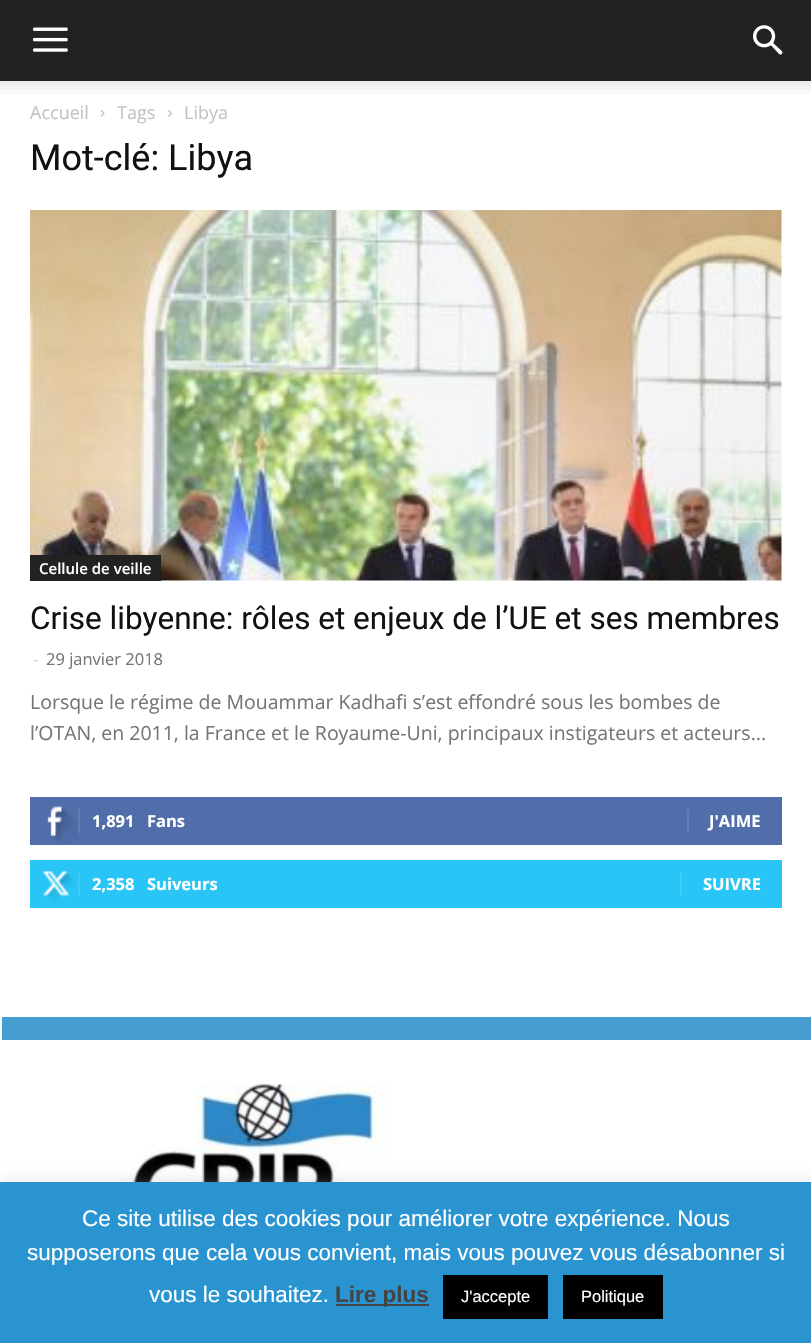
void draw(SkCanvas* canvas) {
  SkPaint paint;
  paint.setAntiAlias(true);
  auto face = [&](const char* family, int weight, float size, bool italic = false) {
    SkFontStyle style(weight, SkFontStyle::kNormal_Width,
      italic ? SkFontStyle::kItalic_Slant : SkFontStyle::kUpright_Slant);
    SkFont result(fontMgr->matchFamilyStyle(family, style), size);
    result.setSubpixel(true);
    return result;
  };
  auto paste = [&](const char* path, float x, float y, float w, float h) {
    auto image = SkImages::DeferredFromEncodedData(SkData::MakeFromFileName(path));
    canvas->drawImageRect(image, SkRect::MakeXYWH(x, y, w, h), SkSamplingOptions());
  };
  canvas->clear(0xffffffff);
  paint.setColor(0xff222222);
  canvas->drawRect(SkRect::MakeXYWH(0, 0, 811, 81), paint);
  paste("img/1.png", 33, 27, 35, 25);
  paste("img/2.png", 753, 25, 30, 30);
  paste("img/3.png", 0, 81, 811, 13);
  paste("img/4.png", 100, 110, 5, 7);
  paste("img/5.png", 168, 110, 4, 7);
  paste("img/6.png", 30, 210, 752, 371);
  canvas->drawRect(SkRect::MakeXYWH(30, 555, 131, 26), paint);
  paint.setColor(0xff516eab);
  canvas->drawRect(SkRect::MakeXYWH(30, 797, 752, 48), paint);
  paste("img/7.png", 47, 806, 31, 38);
  {
    const struct { float x, y, w, h; SkColor color; } items[] = {
      {78, 809, 2, 24, 0xff627db3},
      {687, 809, 2, 24, 0xff627db3},
      {30, 860, 752, 48, 0xff29c5f6},
    };
    for (auto [x, y, w, h, color] : items) {
      paint.setColor(color);
      canvas->drawRect(SkRect::MakeXYWH(x, y, w, h), paint);
    }
  }
  paste("img/8.png", 42, 870, 34, 32);
  {
    const struct { float x, y, w, h; SkColor color; } items[] = {
      {78, 872, 2, 24, 0xff3ecbf7},
      {680, 872, 2, 24, 0xff3ecbf7},
      {2, 1017, 809, 23, 0xff459dd1},
    };
    for (auto [x, y, w, h, color] : items) {
      paint.setColor(color);
      canvas->drawRect(SkRect::MakeXYWH(x, y, w, h), paint);
    }
  }
  paste("img/9.png", 30, 1084, 450, 98);
  paint.setColor(0x4dacabab);
  paint.setMaskFilter(SkMaskFilter::MakeBlur(kNormal_SkBlurStyle, 7.5f));
  canvas->drawRect(SkRect::MakeXYWH(0, 1181, 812, 162), paint);
  paint.setMaskFilter(nullptr);
  {
    const struct { float x, y, w, h; SkColor color; } items[] = {
      {0, 1182, 811, 161, 0xff2a94d1},
      {336, 1304, 93, 2, 0xff444444},
      {443, 1275, 105, 44, 0xff000000},
      {563, 1275, 100, 44, 0xff000000},
    };
    for (auto [x, y, w, h, color] : items) {
      paint.setColor(color);
      canvas->drawRect(SkRect::MakeXYWH(x, y, w, h), paint);
    }
  }
  auto f0 = face("Open Sans", 400, 18);
  paint.setColor(0xffc3c3c3);
  {
    const struct { const char* s; float x, y; } items[] = {
      {"Accueil", 30, 119},
      {"Tags", 117, 119},
      {"Libya", 184, 119},
    };
    for (auto [s, x, y] : items) {
      canvas->drawString(s, x, y, f0, paint);
    }
  }
  auto f1 = face("Roboto", 400, 36);
  paint.setColor(0xff111111);
  canvas->drawString("Mot-clé: Libya", 30, 170, f1, paint);
  auto f2 = face("Open Sans", 600, 15);
  paint.setColor(0xffffffff);
  canvas->drawString("Cellule de veille", 39, 574, f2, paint);
  auto f3 = face("Roboto", 400, 31.5f);
  paint.setColor(0xff111111);
  canvas->drawString("Crise libyenne: rôles et enjeux de l’UE et ses membres", 30, 629, f3, paint);
  auto f4 = face("Open Sans", 400, 16.5f);
  paint.setColor(0xffcccccc);
  canvas->drawString("-", 33, 665, f4, paint);
  paint.setColor(0xff767676);
  canvas->drawString("29 janvier 2018", 46, 665, f4, paint);
  auto f5 = face("Open Sans", 400, 19.5f);
  canvas->drawString("Lorsque le régime de Mouammar Kadhafi s’est effondré sous les bombes de", 30, 709, f5, paint);
  canvas->drawString("l’OTAN, en 2011, la France et le Royaume-Uni, principaux instigateurs et acteurs...", 30, 740, f5, paint);
  auto f6 = face("Open Sans", 700, 16.5f);
  paint.setColor(0xffffffff);
  {
    const struct { const char* s; float x, y; } items[] = {
      {"1,891", 92, 827},
      {"Fans", 147, 827},
      {"J'AIME", 709, 827},
      {"2,358", 92, 890},
      {"Suiveurs", 147, 890},
      {"SUIVRE", 703, 890},
    };
    for (auto [s, x, y] : items) {
      canvas->drawString(s, x, y, f6, paint);
    }
  }
  auto f7 = face("Liberation Sans", 400, 22.5f);
  {
    const struct { const char* s; float x, y; } items[] = {
      {"Ce site utilise des cookies pour améliorer votre expérience. Nous", 82, 1226},
      {"supposerons que cela vous convient, mais vous pouvez vous désabonner si", 27, 1260},
      {"vous le souhaitez.", 149, 1302},
    };
    for (auto [s, x, y] : items) {
      canvas->drawString(s, x, y, f7, paint);
    }
  }
  auto f8 = face("Liberation Sans", 700, 22.5f);
  paint.setColor(0xff444444);
  canvas->drawString("Lire plus", 335, 1302, f8, paint);
  auto f9 = face("Liberation Sans", 400, 16.5f);
  paint.setColor(0xffffffff);
  canvas->drawString("J'accepte", 461, 1302, f9, paint);
  canvas->drawString("Politique", 581, 1302, f9, paint);
}
